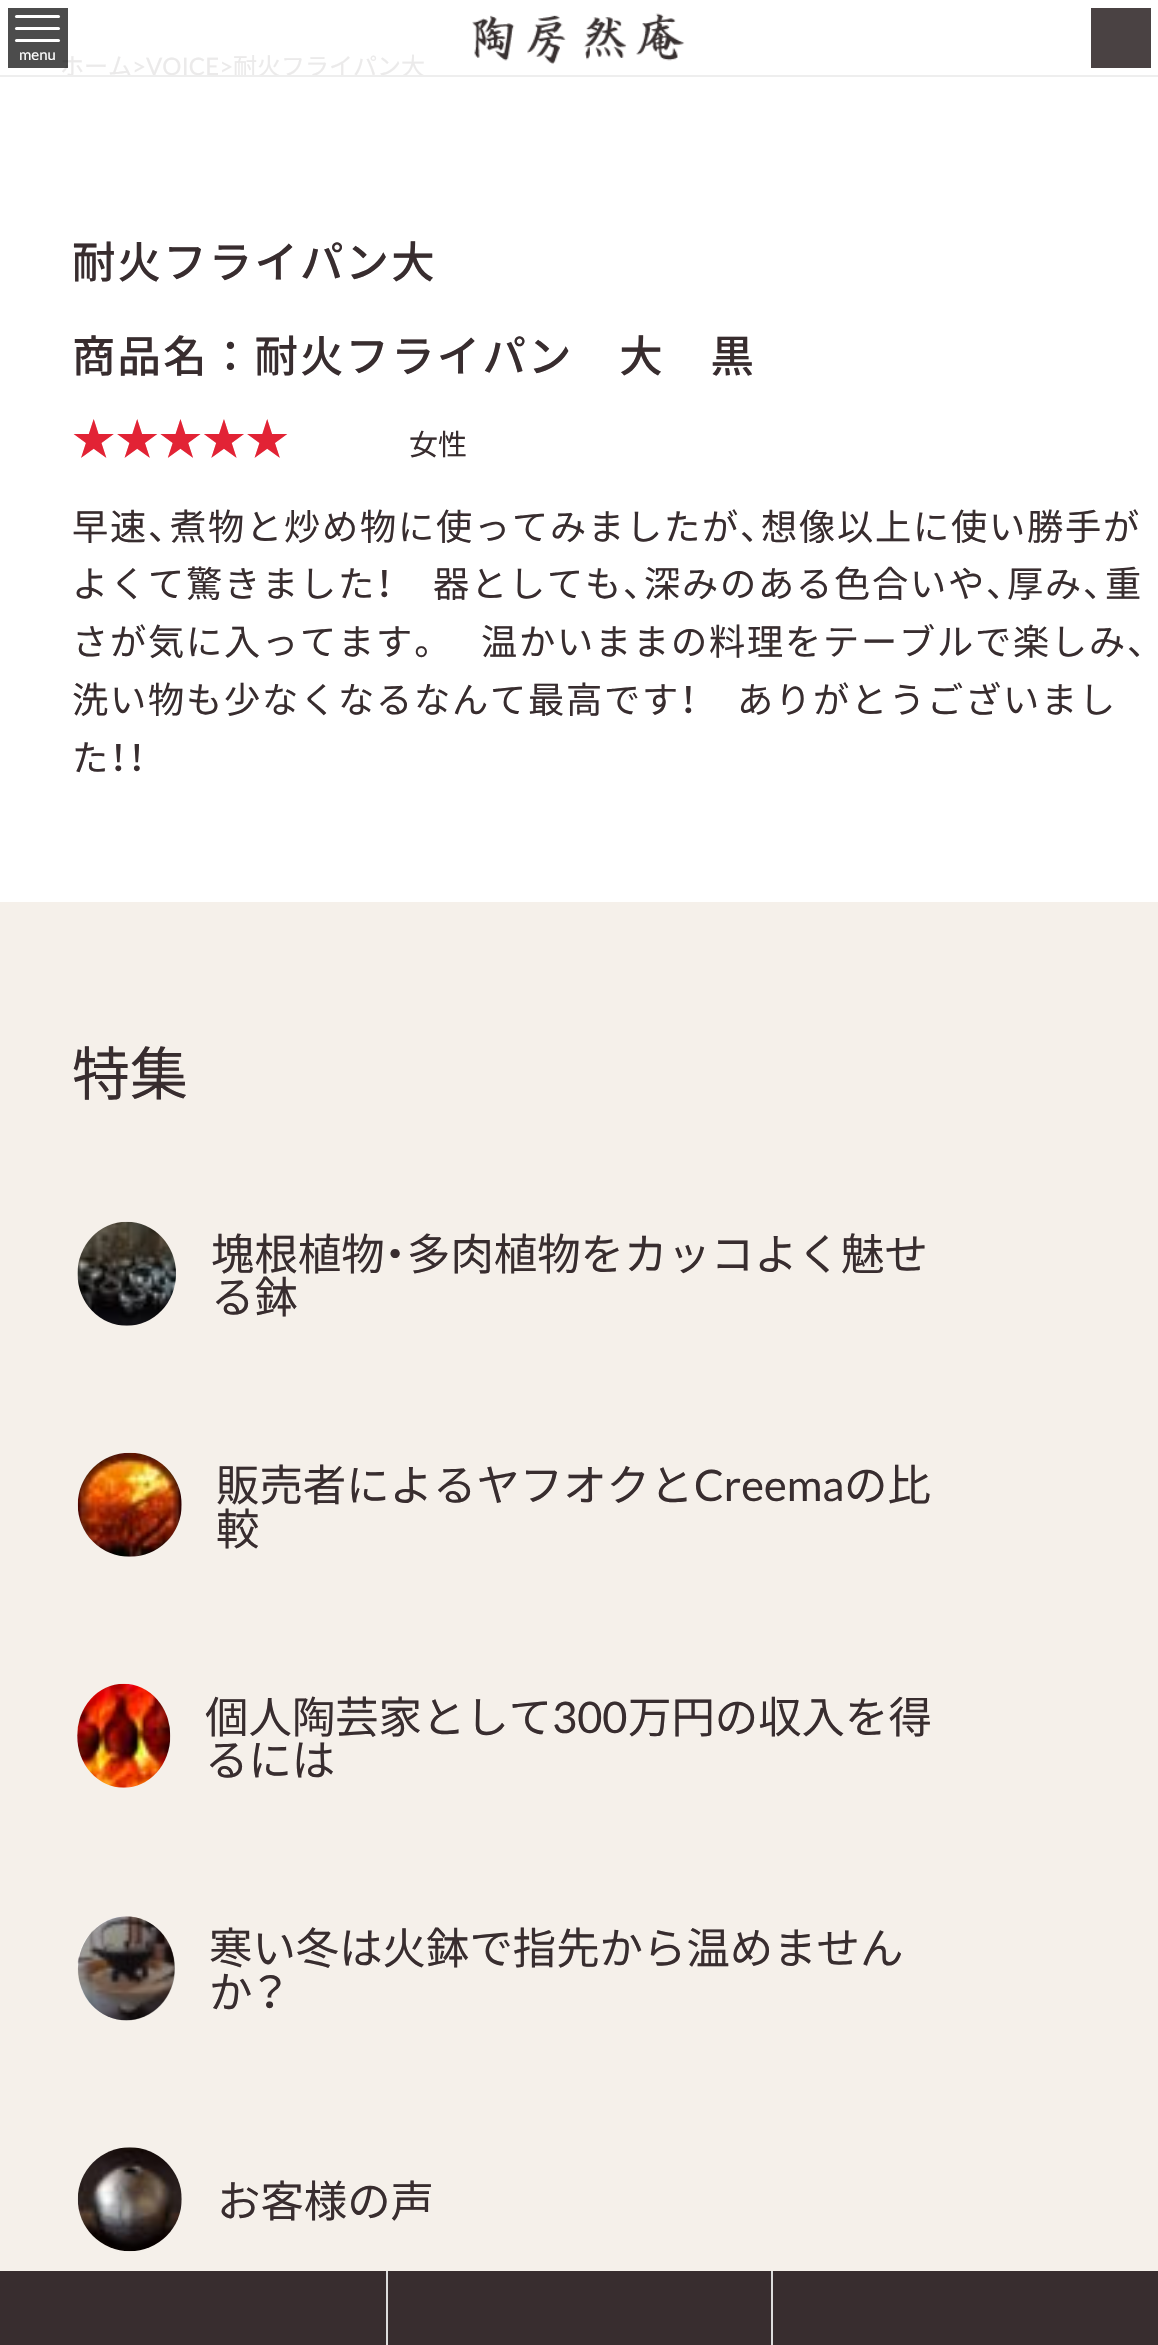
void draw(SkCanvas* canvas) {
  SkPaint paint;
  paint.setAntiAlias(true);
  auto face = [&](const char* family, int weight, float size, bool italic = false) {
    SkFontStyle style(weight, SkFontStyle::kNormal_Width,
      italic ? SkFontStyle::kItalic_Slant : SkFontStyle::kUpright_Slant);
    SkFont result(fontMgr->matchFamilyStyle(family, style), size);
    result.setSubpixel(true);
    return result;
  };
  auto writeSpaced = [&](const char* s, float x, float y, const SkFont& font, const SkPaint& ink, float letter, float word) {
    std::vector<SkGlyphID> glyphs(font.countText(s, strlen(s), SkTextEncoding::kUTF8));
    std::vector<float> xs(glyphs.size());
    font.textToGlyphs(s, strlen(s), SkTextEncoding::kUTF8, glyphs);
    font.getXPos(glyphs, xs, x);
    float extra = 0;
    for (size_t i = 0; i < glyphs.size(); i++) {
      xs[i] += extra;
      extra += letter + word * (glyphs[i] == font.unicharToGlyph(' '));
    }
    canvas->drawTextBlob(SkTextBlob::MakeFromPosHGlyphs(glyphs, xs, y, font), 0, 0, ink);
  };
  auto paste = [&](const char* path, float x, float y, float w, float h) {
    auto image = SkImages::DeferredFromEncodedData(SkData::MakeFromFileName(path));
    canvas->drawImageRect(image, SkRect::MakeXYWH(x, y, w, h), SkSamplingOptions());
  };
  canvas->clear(0xffffffff);
  paste("img/1.png", 472, 13, 213, 51);
  paint.setColor(0xff4a4243);
  canvas->drawRect(SkRect::MakeXYWH(1091, 8, 60, 60), paint);
  paint.setColor(0xfff5f0ea);
  canvas->drawRect(SkRect::MakeXYWH(0, 902, 1158, 1369), paint);
  paste("img/2.png", 77, 1221, 99, 105);
  paste("img/3.png", 77, 1452, 105, 105);
  paste("img/4.png", 77, 1683, 94, 105);
  paste("img/5.png", 77, 1916, 98, 105);
  paint.setColor(0x660a0a0a);
  canvas->drawOval(SkRect::MakeXYWH(78, 1916.5f, 97, 104), paint);
  paste("img/6.png", 77, 2147, 105, 105);
  {
    const struct { float x, y, w, h; SkColor color; } items[] = {
      {0, 2271, 386, 74, 0xff382d2f},
      {388, 2271, 383, 74, 0xff382d2f},
      {386, 2271, 2, 74, 0xffdddddd},
      {773, 2271, 385, 74, 0xff382d2f},
      {771, 2271, 2, 74, 0xffdddddd},
    };
    for (auto [x, y, w, h, color] : items) {
      paint.setColor(color);
      canvas->drawRect(SkRect::MakeXYWH(x, y, w, h), paint);
    }
  }
  auto f0 = face("Noto Sans JP", 400, 24);
  paint.setColor(0xffebeaea);
  canvas->drawString("ホーム", 60, 75, f0, paint);
  paint.setColor(0xb3000000);
  canvas->drawRect(SkRect::MakeXYWH(8, 8, 60, 60), paint);
  auto f1 = face("Lato", 400, 15);
  paint.setColor(0xffffffff);
  canvas->drawString("menu", 19, 60, f1, paint);
  canvas->drawRoundRect(SkRect::MakeXYWH(15, 39, 45, 3), 1.5f, 1.5f, paint);
  canvas->drawRoundRect(SkRect::MakeXYWH(15, 27, 45, 3), 1.5f, 1.5f, paint);
  canvas->drawRoundRect(SkRect::MakeXYWH(15, 15, 45, 3), 1.5f, 1.5f, paint);
  auto f2 = face("Lato", 400, 24);
  paint.setColor(0xffebeaea);
  canvas->drawString(">VOICE>", 132, 75, f2, paint);
  canvas->drawString("耐火フライパン大", 233, 75, f0, paint);
  paint.setColor(0xffeeeeee);
  canvas->drawRect(SkRect::MakeXYWH(0, 75, 1158, 2), paint);
  auto f3 = face("Noto Sans JP", 500, 43.4f);
  paint.setColor(0xff382d2f);
  writeSpaced("耐火フライパン大", 72, 278, f3, paint, 2.2f, 0);
  writeSpaced("商品名：耐火フライパン　大　黒", 72, 372, f3, paint, 2.2f, 0);
  auto f4 = face("Noto Sans JP", 400, 43.4f);
  paint.setColor(0xffe22335);
  canvas->drawString("★★★★★", 72, 455, f4, paint);
  auto f5 = face("Noto Sans JP", 400, 29);
  paint.setColor(0xff382d2f);
  canvas->drawString("女性", 409, 455, f5, paint);
  auto f6 = face("Noto Sans JP", 400, 36.2f);
  writeSpaced("早速", 72, 540, f6, paint, 1.8f, 0);
  auto f7 = face("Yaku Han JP", 400, 36.2f);
  writeSpaced("、", 148, 540, f7, paint, 1.8f, 0);
  writeSpaced("煮物と炒め物に使ってみましたが", 170, 540, f6, paint, 1.8f, 0);
  writeSpaced("、", 740, 540, f7, paint, 1.8f, 0);
  writeSpaced("想像以上に使い勝手が", 761, 540, f6, paint, 1.8f, 0);
  writeSpaced("よくて驚きました", 72, 597, f6, paint, 1.8f, 0);
  writeSpaced("！", 376, 597, f7, paint, 1.8f, 0);
  writeSpaced("器としても", 433, 597, f6, paint, 1.8f, 0);
  writeSpaced("、", 623, 597, f7, paint, 1.8f, 0);
  writeSpaced("深みのある色合いや", 644, 597, f6, paint, 1.8f, 0);
  writeSpaced("、", 986, 597, f7, paint, 1.8f, 0);
  writeSpaced("厚み", 1007, 597, f6, paint, 1.8f, 0);
  writeSpaced("、", 1083, 597, f7, paint, 1.8f, 0);
  writeSpaced("重", 1105, 597, f6, paint, 1.8f, 0);
  writeSpaced("さが気に入ってます", 72, 655, f6, paint, 1.8f, 0);
  writeSpaced("。", 414, 655, f7, paint, 1.8f, 0);
  writeSpaced("温かいままの料理をテーブルで楽しみ", 481, 655, f6, paint, 1.8f, 0);
  writeSpaced("、", 1127, 655, f7, paint, 1.8f, 0);
  writeSpaced("洗い物も少なくなるなんて最高です", 72, 713, f6, paint, 1.8f, 0);
  writeSpaced("！", 680, 713, f7, paint, 1.8f, 0);
  writeSpaced("ありがとうございまし", 737, 713, f6, paint, 1.8f, 0);
  writeSpaced("た", 72, 771, f6, paint, 1.8f, 0);
  writeSpaced("！！", 110, 771, f7, paint, 1.8f, 0);
  auto f8 = face("Noto Sans JP", 400, 58);
  canvas->drawString("特集", 72, 1095, f8, paint);
  canvas->drawString("塊根植物", 211, 1270, f4, paint);
  auto f9 = face("Yaku Han JP", 400, 43.4f);
  canvas->drawString("・", 384, 1270, f9, paint);
  {
    const struct { const char* s; float x, y; } items[] = {
      {"多肉植物をカッコよく魅せ", 407, 1270},
      {"る鉢", 211, 1313},
      {"販売者によるヤフオクと", 216, 1501},
    };
    for (auto [s, x, y] : items) {
      canvas->drawString(s, x, y, f4, paint);
    }
  }
  auto f10 = face("Lato", 400, 43.4f);
  canvas->drawString("Creema", 694, 1501, f10, paint);
  {
    const struct { const char* s; float x, y; } items[] = {
      {"の比", 844, 1501},
      {"較", 216, 1545},
      {"個人陶芸家として", 205, 1733},
    };
    for (auto [s, x, y] : items) {
      canvas->drawString(s, x, y, f4, paint);
    }
  }
  canvas->drawString("300", 552, 1733, f10, paint);
  {
    const struct { const char* s; float x, y; } items[] = {
      {"万円の収入を得", 628, 1733},
      {"るには", 205, 1776},
      {"寒い冬は火鉢で指先から温めません", 209, 1964},
      {"か", 209, 2008},
    };
    for (auto [s, x, y] : items) {
      canvas->drawString(s, x, y, f4, paint);
    }
  }
  canvas->drawString("？", 253, 2008, f9, paint);
  canvas->drawString("お客様の声", 217, 2217, f4, paint);
}
